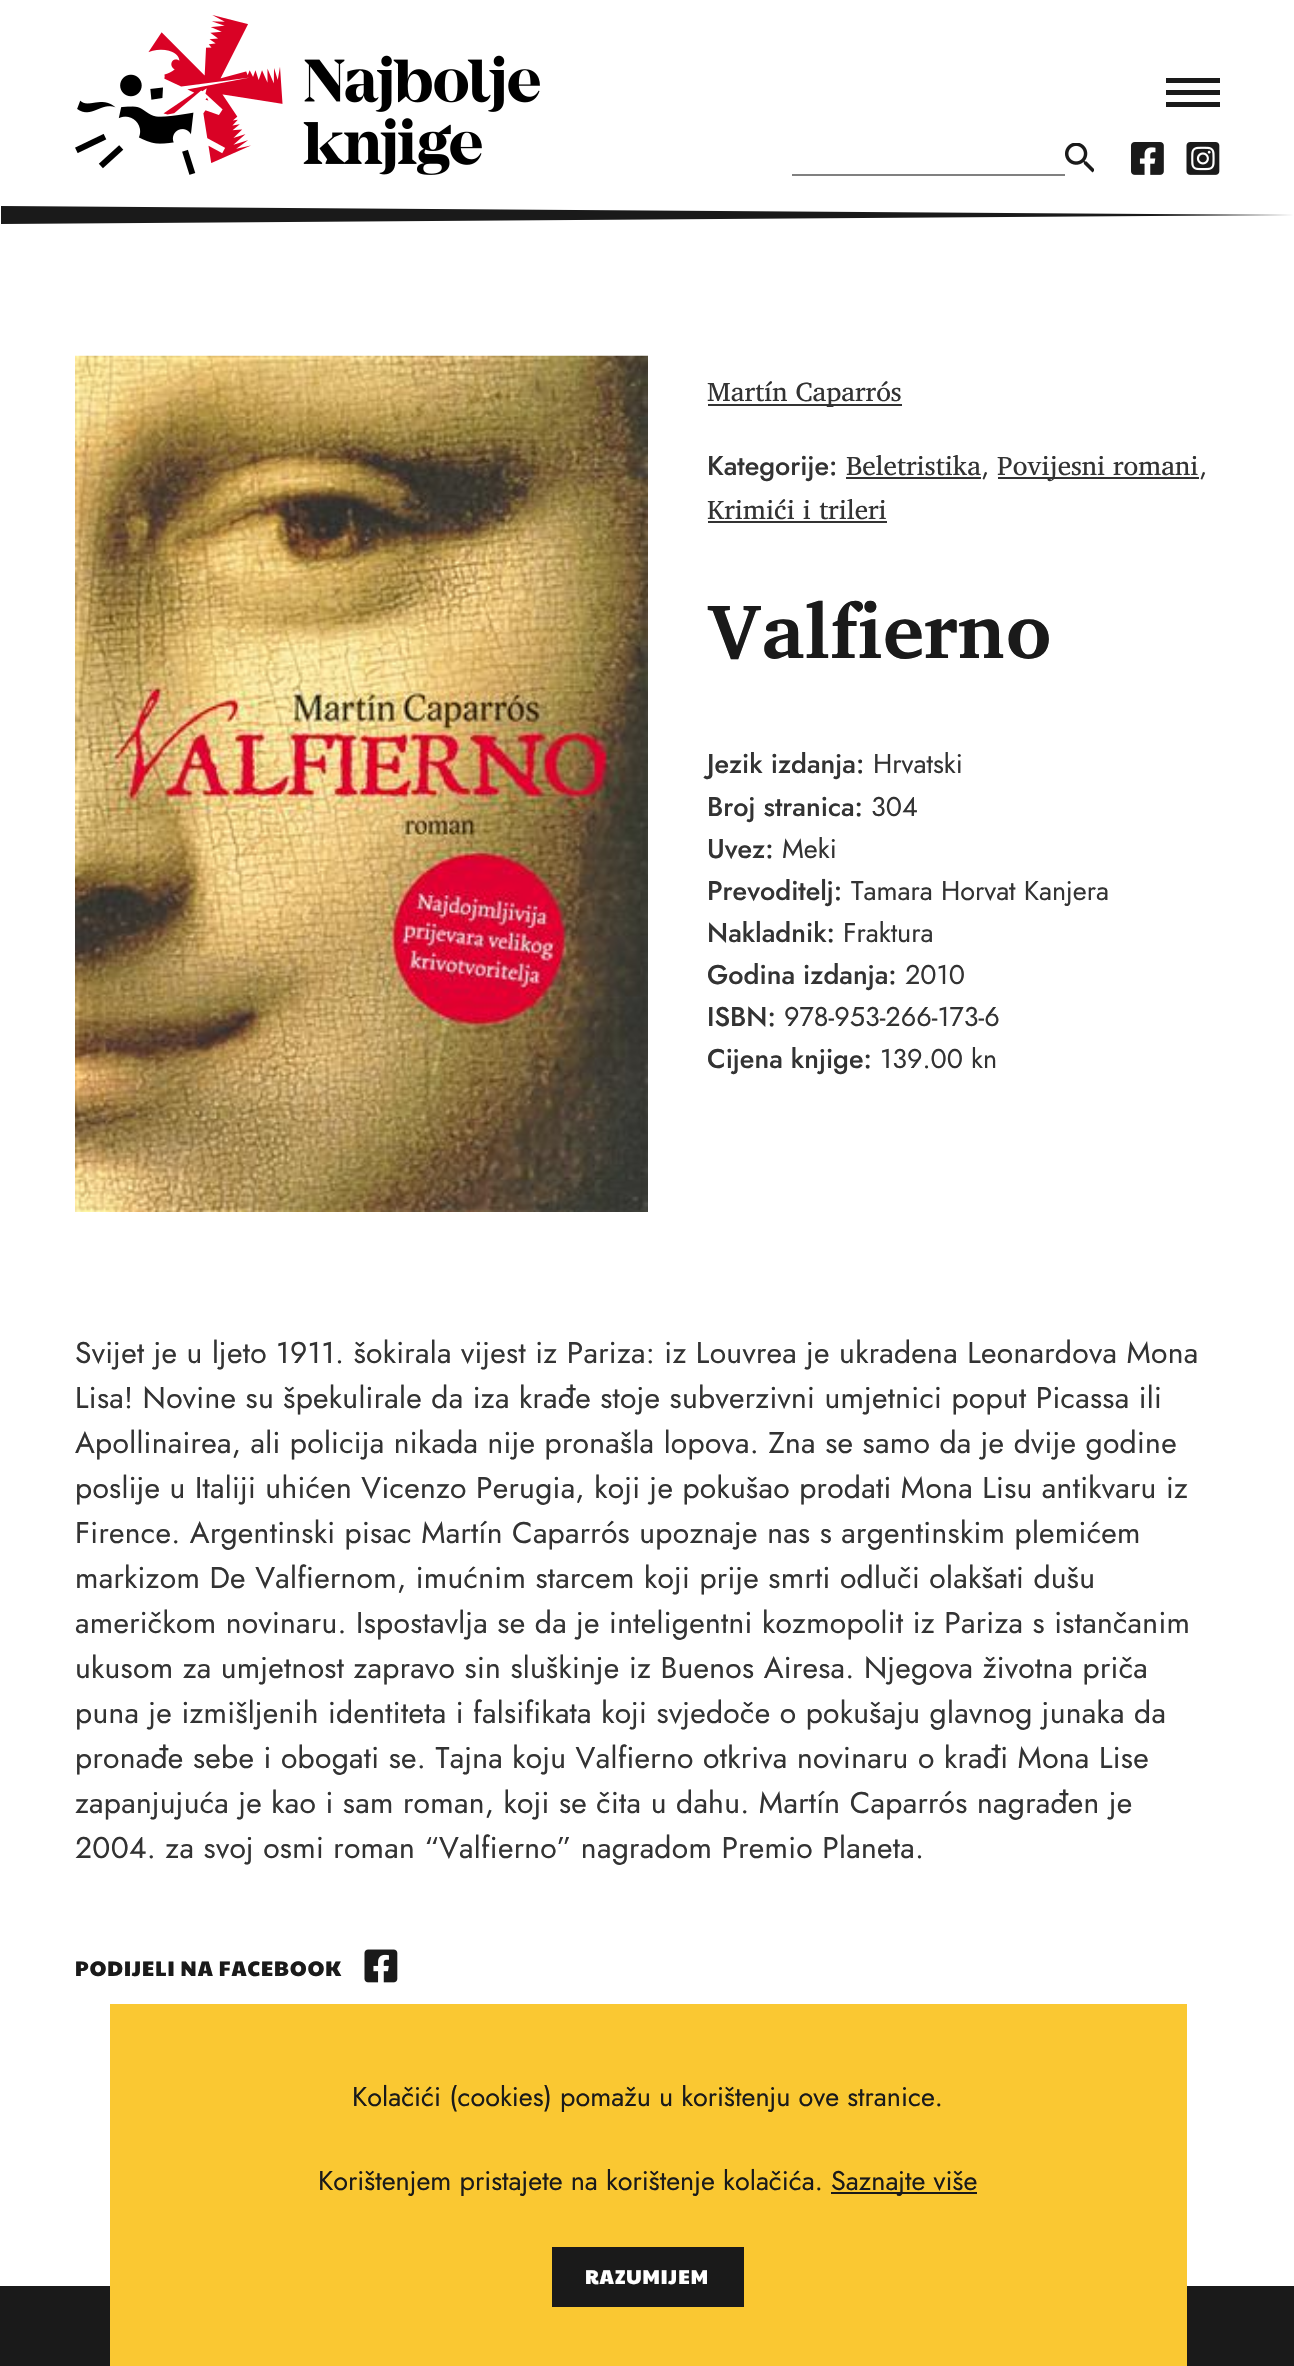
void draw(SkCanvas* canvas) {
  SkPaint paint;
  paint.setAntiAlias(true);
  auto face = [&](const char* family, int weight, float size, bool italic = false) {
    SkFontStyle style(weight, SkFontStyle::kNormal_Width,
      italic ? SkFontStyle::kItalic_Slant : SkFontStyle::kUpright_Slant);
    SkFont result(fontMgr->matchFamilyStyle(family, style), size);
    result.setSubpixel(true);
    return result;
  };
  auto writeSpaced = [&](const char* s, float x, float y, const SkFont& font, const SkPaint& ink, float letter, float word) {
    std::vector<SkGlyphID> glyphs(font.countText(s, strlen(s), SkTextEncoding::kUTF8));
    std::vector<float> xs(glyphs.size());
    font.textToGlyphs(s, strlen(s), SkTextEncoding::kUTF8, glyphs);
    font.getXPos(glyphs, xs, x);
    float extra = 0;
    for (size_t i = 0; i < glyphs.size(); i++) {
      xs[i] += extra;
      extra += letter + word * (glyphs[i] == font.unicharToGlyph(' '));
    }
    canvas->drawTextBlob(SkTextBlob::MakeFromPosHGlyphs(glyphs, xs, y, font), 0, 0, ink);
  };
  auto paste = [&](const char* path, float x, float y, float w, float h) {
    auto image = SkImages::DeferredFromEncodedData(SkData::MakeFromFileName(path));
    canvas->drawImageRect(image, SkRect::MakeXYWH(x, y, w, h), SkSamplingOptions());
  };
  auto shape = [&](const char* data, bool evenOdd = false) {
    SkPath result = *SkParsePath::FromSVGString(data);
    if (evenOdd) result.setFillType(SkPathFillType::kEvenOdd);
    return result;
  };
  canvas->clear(0xffffffff);
  paste("img/1.png", 75, 15, 465, 160);
  {
    const struct { float x, y, w, h; SkColor color; } items[] = {
      {1166, 78, 54, 5, 0xff1a1a1a},
      {1166, 90, 54, 5, 0xff1a1a1a},
      {1166, 102, 54, 5, 0xff1a1a1a},
    };
    for (auto [x, y, w, h, color] : items) {
      paint.setColor(color);
      canvas->drawRect(SkRect::MakeXYWH(x, y, w, h), paint);
    }
  }
  paste("img/2.png", 1065, 143, 29, 30);
  paint.setColor(0xff808080);
  canvas->drawRect(SkRect::MakeXYWH(792, 174, 273, 2), paint);
  paste("img/3.png", 1131, 142, 33, 33);
  paste("img/4.png", 1186, 142, 34, 33);
  paint.setColor(0xff1a1a1a);
  canvas->drawPath(shape("M1294 215L1 224V206Z"), paint);
  paste("img/5.png", 75, 355, 573, 857);
  {
    const struct { float x, y, w, h; SkColor color; } items[] = {
      {708, 404, 194, 2, 0xff333333},
      {846, 477, 135, 2, 0xff333333},
      {998, 477, 201, 2, 0xff333333},
      {708, 521, 179, 2, 0xff333333},
    };
    for (auto [x, y, w, h, color] : items) {
      paint.setColor(color);
      canvas->drawRect(SkRect::MakeXYWH(x, y, w, h), paint);
    }
  }
  paste("img/6.png", 364, 1949, 34, 34);
  {
    const struct { float x, y, w, h; SkColor color; } items[] = {
      {0, 2286, 1294, 80, 0xff1a1a1a},
      {110, 2004, 1077, 362, 0xfffac832},
      {831, 2192, 146, 2, 0xff1a1a1a},
      {552, 2247, 192, 60, 0xff1a1a1a},
    };
    for (auto [x, y, w, h, color] : items) {
      paint.setColor(color);
      canvas->drawRect(SkRect::MakeXYWH(x, y, w, h), paint);
    }
  }
  auto f0 = face("Charis SIL", 400, 27);
  paint.setColor(0xff333333);
  canvas->drawString("Martín Caparrós", 707, 401, f0, paint);
  auto f1 = face("Jost", 500, 27);
  canvas->drawString("Kategorije:", 707, 475, f1, paint);
  canvas->drawString("Beletristika", 846, 475, f0, paint);
  auto f2 = face("Jost", 400, 27);
  canvas->drawString(",", 981, 475, f2, paint);
  canvas->drawString("Povijesni romani", 997, 475, f0, paint);
  canvas->drawString(",", 1199, 475, f2, paint);
  canvas->drawString("Krimići i trileri", 707, 519, f0, paint);
  auto f3 = face("Charis SIL", 700, 77.5f);
  paint.setColor(0xff1a1a1a);
  canvas->drawString("Valfierno", 707, 658, f3, paint);
  paint.setColor(0xff333333);
  canvas->drawString("Jezik izdanja:", 707, 773, f1, paint);
  canvas->drawString("Hrvatski", 873, 773, f2, paint);
  canvas->drawString("Broj stranica:", 707, 816, f1, paint);
  canvas->drawString("304", 871, 816, f2, paint);
  canvas->drawString("Uvez:", 707, 858, f1, paint);
  canvas->drawString("Meki", 782, 858, f2, paint);
  canvas->drawString("Prevoditelj:", 707, 900, f1, paint);
  canvas->drawString("Tamara Horvat Kanjera", 851, 900, f2, paint);
  canvas->drawString("Nakladnik:", 707, 942, f1, paint);
  canvas->drawString("Fraktura", 843, 942, f2, paint);
  canvas->drawString("Godina izdanja:", 707, 984, f1, paint);
  canvas->drawString("2010", 905, 984, f2, paint);
  canvas->drawString("ISBN:", 707, 1026, f1, paint);
  canvas->drawString("978-953-266-173-6", 784, 1026, f2, paint);
  canvas->drawString("Cijena knjige:", 707, 1068, f1, paint);
  canvas->drawString("139.00 kn", 880, 1068, f2, paint);
  auto f4 = face("Jost", 400, 30);
  {
    const struct { const char* s; float x, y; } items[] = {
      {"Svijet je u ljeto 1911. šokirala vijest iz Pariza: iz Louvrea je ukradena Leonardova Mona", 75, 1363},
      {"Lisa! Novine su špekulirale da iza krađe stoje subverzivni umjetnici poput Picassa ili", 75, 1408},
      {"Apollinairea, ali policija nikada nije pronašla lopova. Zna se samo da je dvije godine", 75, 1453},
      {"poslije u Italiji uhićen Vicenzo Perugia, koji je pokušao prodati Mona Lisu antikvaru iz", 75, 1498},
      {"Firence. Argentinski pisac Martín Caparrós upoznaje nas s argentinskim plemićem", 75, 1543},
      {"markizom De Valfiernom, imućnim starcem koji prije smrti odluči olakšati dušu", 75, 1588},
      {"američkom novinaru. Ispostavlja se da je inteligentni kozmopolit iz Pariza s istančanim", 75, 1633},
      {"ukusom za umjetnost zapravo sin sluškinje iz Buenos Airesa. Njegova životna priča", 75, 1678},
      {"puna je izmišljenih identiteta i falsifikata koji svjedoče o pokušaju glavnog junaka da", 75, 1723},
      {"pronađe sebe i obogati se. Tajna koju Valfierno otkriva novinaru o krađi Mona Lise", 75, 1768},
      {"zapanjujuća je kao i sam roman, koji se čita u dahu. Martín Caparrós nagrađen je", 75, 1813},
      {"2004. za svoj osmi roman “Valfierno” nagradom Premio Planeta.", 75, 1858},
    };
    for (auto [s, x, y] : items) {
      writeSpaced(s, x, y, f4, paint, 0.3f, 0);
    }
  }
  auto f5 = face("Paytone One", 400, 21);
  paint.setColor(0xff1a1a1a);
  writeSpaced("PODIJELI NA FACEBOOK", 75, 1976, f5, paint, 1.05f, 0);
  {
    const struct { const char* s; float x, y; } items[] = {
      {"Kolačići (cookies) pomažu u korištenju ove stranice.", 352, 2106},
      {"Korištenjem pristajete na korištenje kolačića.", 318, 2190},
      {"Saznajte više", 831, 2190},
    };
    for (auto [s, x, y] : items) {
      canvas->drawString(s, x, y, f2, paint);
    }
  }
  auto f6 = face("Paytone One", 400, 20);
  paint.setColor(0xffffffff);
  writeSpaced("RAZUMIJEM", 585, 2284, f6, paint, 1.05f, 0);
}
